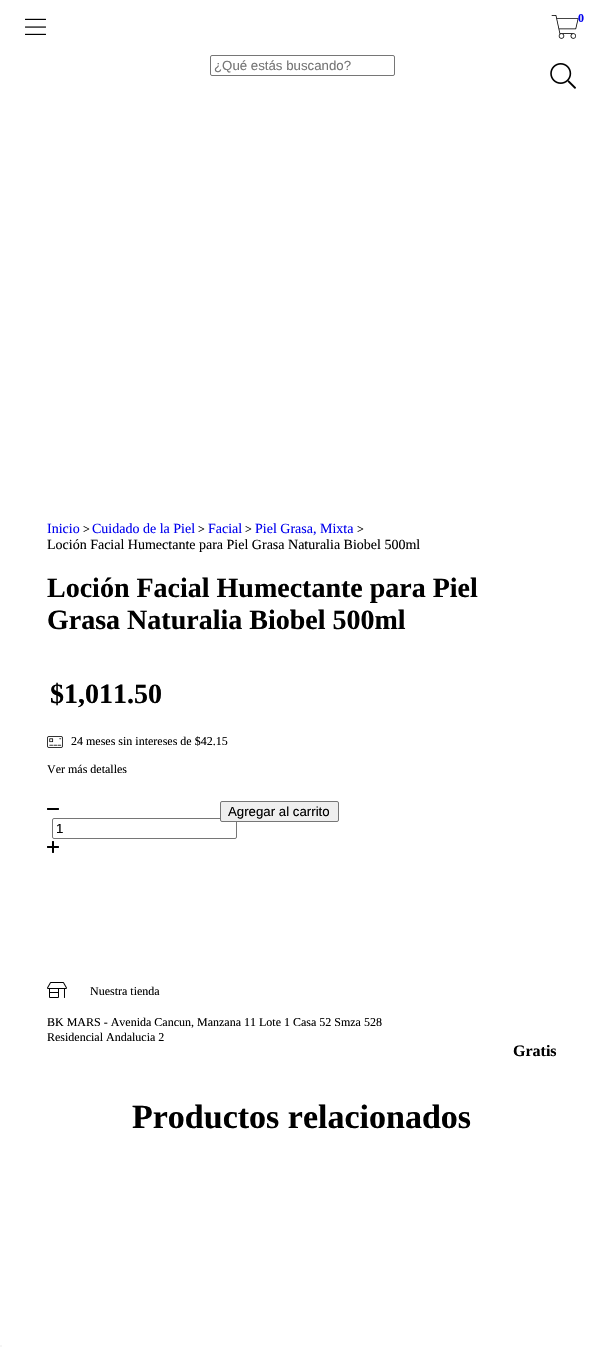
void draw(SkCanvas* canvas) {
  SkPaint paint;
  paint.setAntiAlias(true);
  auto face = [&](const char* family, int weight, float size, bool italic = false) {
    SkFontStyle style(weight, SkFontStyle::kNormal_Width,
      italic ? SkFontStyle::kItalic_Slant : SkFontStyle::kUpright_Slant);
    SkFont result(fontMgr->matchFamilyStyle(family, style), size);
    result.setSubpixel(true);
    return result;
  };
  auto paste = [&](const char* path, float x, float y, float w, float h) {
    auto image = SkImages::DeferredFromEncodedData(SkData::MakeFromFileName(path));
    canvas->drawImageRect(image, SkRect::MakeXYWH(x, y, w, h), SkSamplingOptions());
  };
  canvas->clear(0xffffffff);
  paste("img/1.png", 25, 18, 21, 17);
  paste("img/2.png", 551, 15, 28, 24);
  paint.setStroke(true);
  paint.setStrokeWidth(1);
  paint.setColor(0xff767676);
  canvas->drawRoundRect(SkRect::MakeXYWH(210.5f, 55.5f, 184, 20), 1.5f, 1.5f, paint);
  paste("img/3.png", 550, 63, 26, 26);
  paste("img/4.png", 47, 736, 16, 12);
  canvas->drawRoundRect(SkRect::MakeXYWH(52.5f, 818.5f, 184, 20), 1.5f, 1.5f, paint);
  paint.setStroke(false);
  paint.setColor(0xffefefef);
  canvas->drawRoundRect(SkRect::MakeXYWH(220.5f, 801.5f, 118, 20), 1.5f, 1.5f, paint);
  paint.setStroke(true);
  paint.setColor(0xff767676);
  canvas->drawRoundRect(SkRect::MakeXYWH(220.5f, 801.5f, 118, 20), 1.5f, 1.5f, paint);
  paste("img/5.png", 47, 808, 12, 2);
  paste("img/6.png", 47, 841, 12, 12);
  paste("img/7.png", 47, 982, 20, 16);
  paint.setStroke(false);
  paint.setColor(0xfff5f5f5);
  canvas->drawRect(SkRect::MakeXYWH(0, 1345, 2, 2), paint);
  auto f0 = face("Liberation Serif", 700, 12);
  paint.setColor(0xff0000ee);
  canvas->drawString("0", 578, 22, f0, paint);
  auto f1 = face("Liberation Sans", 400, 13.25f);
  paint.setColor(0xff757575);
  canvas->drawString("¿Qué estás buscando?", 214, 70, f1, paint);
  auto f2 = face("Liberation Serif", 400, 14);
  paint.setColor(0xff0000ee);
  canvas->drawString("Inicio", 47, 533, f2, paint);
  auto f3 = face("Liberation Serif", 400, 12);
  paint.setColor(0xff000000);
  canvas->drawString(">", 83, 533, f3, paint);
  paint.setColor(0xff0000ee);
  canvas->drawString("Cuidado de la Piel", 92, 533, f2, paint);
  paint.setColor(0xff000000);
  canvas->drawString(">", 198, 533, f3, paint);
  paint.setColor(0xff0000ee);
  canvas->drawString("Facial", 208, 533, f2, paint);
  paint.setColor(0xff000000);
  canvas->drawString(">", 245, 533, f3, paint);
  paint.setColor(0xff0000ee);
  canvas->drawString("Piel Grasa, Mixta", 255, 533, f2, paint);
  paint.setColor(0xff000000);
  canvas->drawString(">", 357, 533, f3, paint);
  canvas->drawString("Loción Facial Humectante para Piel Grasa Naturalia Biobel 500ml", 47, 549, f2, paint);
  auto f4 = face("Liberation Serif", 700, 28);
  {
    const struct { const char* s; float x, y; } items[] = {
      {"Loción Facial Humectante para Piel", 47, 597},
      {"Grasa Naturalia Biobel 500ml", 47, 629},
      {"$1,011.50", 50, 703},
    };
    for (auto [s, x, y] : items) {
      canvas->drawString(s, x, y, f4, paint);
    }
  }
  canvas->drawString("24 meses sin intereses de $42.15", 71, 745, f3, paint);
  canvas->drawString("Ver más detalles", 47, 773, f3, paint);
  canvas->drawString("Agregar al carrito", 228, 816, f1, paint);
  canvas->drawString("1", 56, 833, f1, paint);
  {
    const struct { const char* s; float x, y; } items[] = {
      {"Nuestra tienda", 90, 995},
      {"BK MARS - Avenida Cancun, Manzana 11 Lote 1 Casa 52 Smza 528", 47, 1026},
      {"Residencial Andalucia 2", 47, 1041},
    };
    for (auto [s, x, y] : items) {
      canvas->drawString(s, x, y, f3, paint);
    }
  }
  auto f5 = face("Liberation Serif", 700, 16);
  canvas->drawString("Gratis", 513, 1056, f5, paint);
  auto f6 = face("Liberation Serif", 700, 34);
  canvas->drawString("Productos relacionados", 132, 1128, f6, paint);
}
